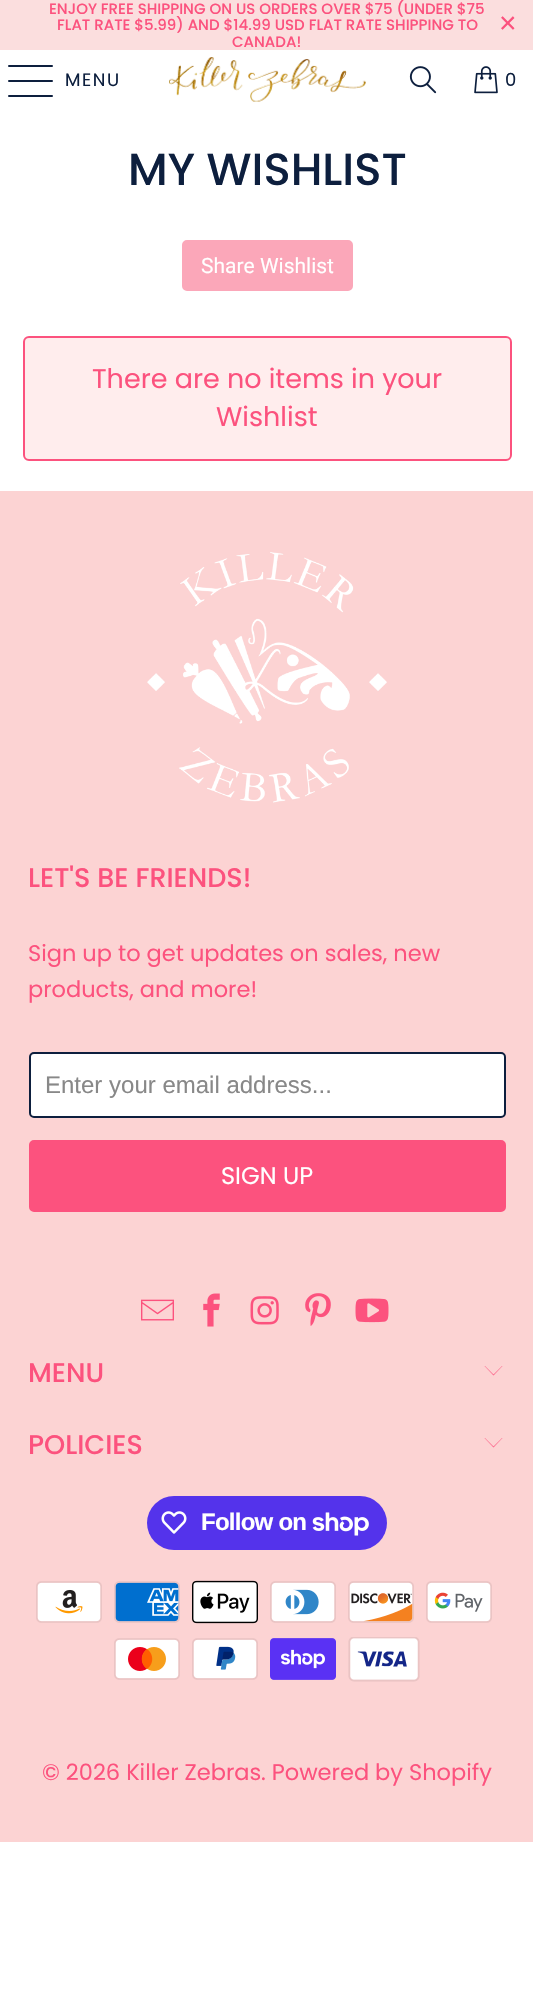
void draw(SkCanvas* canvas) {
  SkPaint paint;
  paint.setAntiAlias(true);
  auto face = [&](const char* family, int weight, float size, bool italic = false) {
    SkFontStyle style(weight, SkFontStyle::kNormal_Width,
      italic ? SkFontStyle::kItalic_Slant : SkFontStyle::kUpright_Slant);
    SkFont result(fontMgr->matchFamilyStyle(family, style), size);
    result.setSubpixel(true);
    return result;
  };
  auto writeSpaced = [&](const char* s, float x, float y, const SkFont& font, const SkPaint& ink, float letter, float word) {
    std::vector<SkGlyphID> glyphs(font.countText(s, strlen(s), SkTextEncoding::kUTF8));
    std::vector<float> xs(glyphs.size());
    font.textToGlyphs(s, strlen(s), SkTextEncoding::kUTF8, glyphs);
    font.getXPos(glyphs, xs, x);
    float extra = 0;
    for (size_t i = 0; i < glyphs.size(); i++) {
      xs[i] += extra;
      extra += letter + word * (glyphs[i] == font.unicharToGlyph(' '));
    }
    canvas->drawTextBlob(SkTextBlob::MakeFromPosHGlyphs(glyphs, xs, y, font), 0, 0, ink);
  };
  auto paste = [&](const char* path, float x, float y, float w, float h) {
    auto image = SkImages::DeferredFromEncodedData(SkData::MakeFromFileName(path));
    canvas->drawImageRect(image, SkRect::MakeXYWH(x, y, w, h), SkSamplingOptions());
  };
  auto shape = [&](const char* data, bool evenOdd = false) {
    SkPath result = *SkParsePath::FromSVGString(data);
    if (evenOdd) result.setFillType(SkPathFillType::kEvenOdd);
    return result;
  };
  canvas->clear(0xffffffff);
  paint.setColor(0xfffbdede);
  canvas->drawRect(SkRect::MakeXYWH(0, 0, 533, 50), paint);
  paint.setColor(0xff0d1f3e);
  canvas->drawRoundRect(SkRect::MakeXYWH(8, 65, 45, 2), 1, 1, paint);
  canvas->drawRoundRect(SkRect::MakeXYWH(8, 80, 45, 2), 1, 1, paint);
  canvas->drawRoundRect(SkRect::MakeXYWH(8, 95, 45, 2), 1, 1, paint);
  paste("img/1.png", 169, 57, 197, 45);
  paste("img/2.png", 409, 66, 28, 28);
  paste("img/3.png", 474, 66, 24, 28);
  paint.setColor(0xfffba7b9);
  canvas->drawRoundRect(SkRect::MakeXYWH(183, 241, 169, 49), 4, 4, paint);
  paint.setStroke(true);
  paint.setStrokeWidth(2);
  canvas->drawRoundRect(SkRect::MakeXYWH(183, 241, 169, 49), 4, 4, paint);
  paint.setStroke(false);
  paint.setColor(0xffffeded);
  canvas->drawRoundRect(SkRect::MakeXYWH(24, 337, 487, 123), 5, 5, paint);
  paint.setStroke(true);
  paint.setColor(0xfffc527e);
  canvas->drawRoundRect(SkRect::MakeXYWH(24, 337, 487, 123), 5, 5, paint);
  paint.setStroke(false);
  paint.setColor(0xfffcd3d3);
  canvas->drawRect(SkRect::MakeXYWH(0, 491, 533, 1351), paint);
  paste("img/4.png", 147, 552, 240, 251);
  paint.setColor(0xffffffff);
  canvas->drawRoundRect(SkRect::MakeXYWH(30, 1053, 475, 64), 4, 4, paint);
  paint.setStroke(true);
  paint.setColor(0xff0d1f3e);
  canvas->drawRoundRect(SkRect::MakeXYWH(30, 1053, 475, 64), 4, 4, paint);
  paint.setStroke(false);
  paint.setColor(0xfffc527e);
  canvas->drawRoundRect(SkRect::MakeXYWH(30, 1141, 475, 70), 4, 4, paint);
  paint.setStroke(true);
  canvas->drawRoundRect(SkRect::MakeXYWH(30, 1141, 475, 70), 4, 4, paint);
  paste("img/5.png", 141, 1299, 33, 22);
  paste("img/6.png", 203, 1293, 17, 34);
  paste("img/7.png", 250, 1296, 29, 29);
  paste("img/8.png", 305, 1293, 26, 33);
  paste("img/9.png", 355, 1298, 34, 25);
  paint.setStroke(false);
  canvas->drawPath(shape("M493.5 1375.5L484.5 1366H485L493.5 1374.5L502 1366H502.5Z"), paint);
  canvas->drawPath(shape("M493.5 1447.5L484.5 1438H485L493.5 1446.5L502 1438H502.5Z"), paint);
  paint.setColor(0xff5433eb);
  canvas->drawRoundRect(SkRect::MakeXYWH(147, 1496, 240, 54), 27, 27, paint);
  paste("img/10.png", 161, 1511, 26, 23);
  paste("img/11.png", 312, 1512, 57, 24);
  paste("img/12.png", 36, 1581, 66, 42);
  paste("img/13.png", 114, 1581, 66, 42);
  paste("img/14.png", 192, 1580, 66, 44);
  paste("img/15.png", 270, 1581, 66, 42);
  paste("img/16.png", 348, 1581, 66, 42);
  paste("img/17.png", 426, 1581, 66, 42);
  paste("img/18.png", 114, 1638, 66, 42);
  paste("img/19.png", 192, 1638, 66, 42);
  paste("img/20.png", 270, 1638, 66, 42);
  paste("img/21.png", 348, 1637, 72, 45);
  auto f0 = face("poppins", 500, 15);
  paint.setColor(0xfffc527e);
  {
    const struct { const char* s; float x, y; } items[] = {
      {"ENJOY FREE SHIPPING ON US ORDERS OVER $75 (UNDER $75", 49, 14},
      {"FLAT RATE $5.99) AND $14.99 USD FLAT RATE SHIPPING TO", 57, 30},
      {"CANADA!", 232, 47},
    };
    for (auto [s, x, y] : items) {
      canvas->drawString(s, x, y, f0, paint);
    }
  }
  auto f1 = face("Liberation Sans", 400, 30);
  canvas->drawString("×", 499, 33, f1, paint);
  auto f2 = face("poppins", 400, 18);
  paint.setColor(0xff0d1f3e);
  writeSpaced("MENU", 65, 86, f2, paint, 1.5f, 0);
  writeSpaced("0", 505, 86, f2, paint, 1.5f, 0);
  auto f3 = face("poppins", 500, 45);
  canvas->drawString("MY WISHLIST", 128, 185, f3, paint);
  auto f4 = face("Roboto", 400, 21);
  paint.setColor(0xffffffff);
  canvas->drawString("Share Wishlist", 201, 273, f4, paint);
  auto f5 = face("poppins", 400, 27);
  paint.setColor(0xfffc527e);
  canvas->drawString("There are no items in your", 92, 388, f5, paint);
  canvas->drawString("Wishlist", 216, 426, f5, paint);
  auto f6 = face("poppins", 500, 27);
  canvas->drawString("LET'S BE FRIENDS!", 28, 887, f6, paint);
  auto f7 = face("poppins", 400, 22.5f);
  canvas->drawString("Sign up to get updates on sales, new", 28, 961, f7, paint);
  canvas->drawString("products, and more!", 28, 997, f7, paint);
  auto f8 = face("Liberation Sans", 400, 24);
  paint.setColor(0xff888888);
  canvas->drawString("Enter your email address...", 45, 1093, f8, paint);
  auto f9 = face("poppins", 400, 24);
  paint.setColor(0xffffffff);
  canvas->drawString("SIGN UP", 221, 1184, f9, paint);
  paint.setColor(0xfffc527e);
  canvas->drawString("MENU", 28, 1382, f6, paint);
  canvas->drawString("POLICIES", 28, 1454, f6, paint);
  auto f10 = face("Liberation Sans", 700, 24);
  paint.setColor(0xffffffff);
  writeSpaced("Follow on", 201, 1530, f10, paint, -0.75f, 0);
  paint.setColor(0xfffc527e);
  canvas->drawString("© 2026 Killer Zebras", 42, 1780, f7, paint);
  canvas->drawString(". Powered by Shopify", 261, 1780, f7, paint);
}
